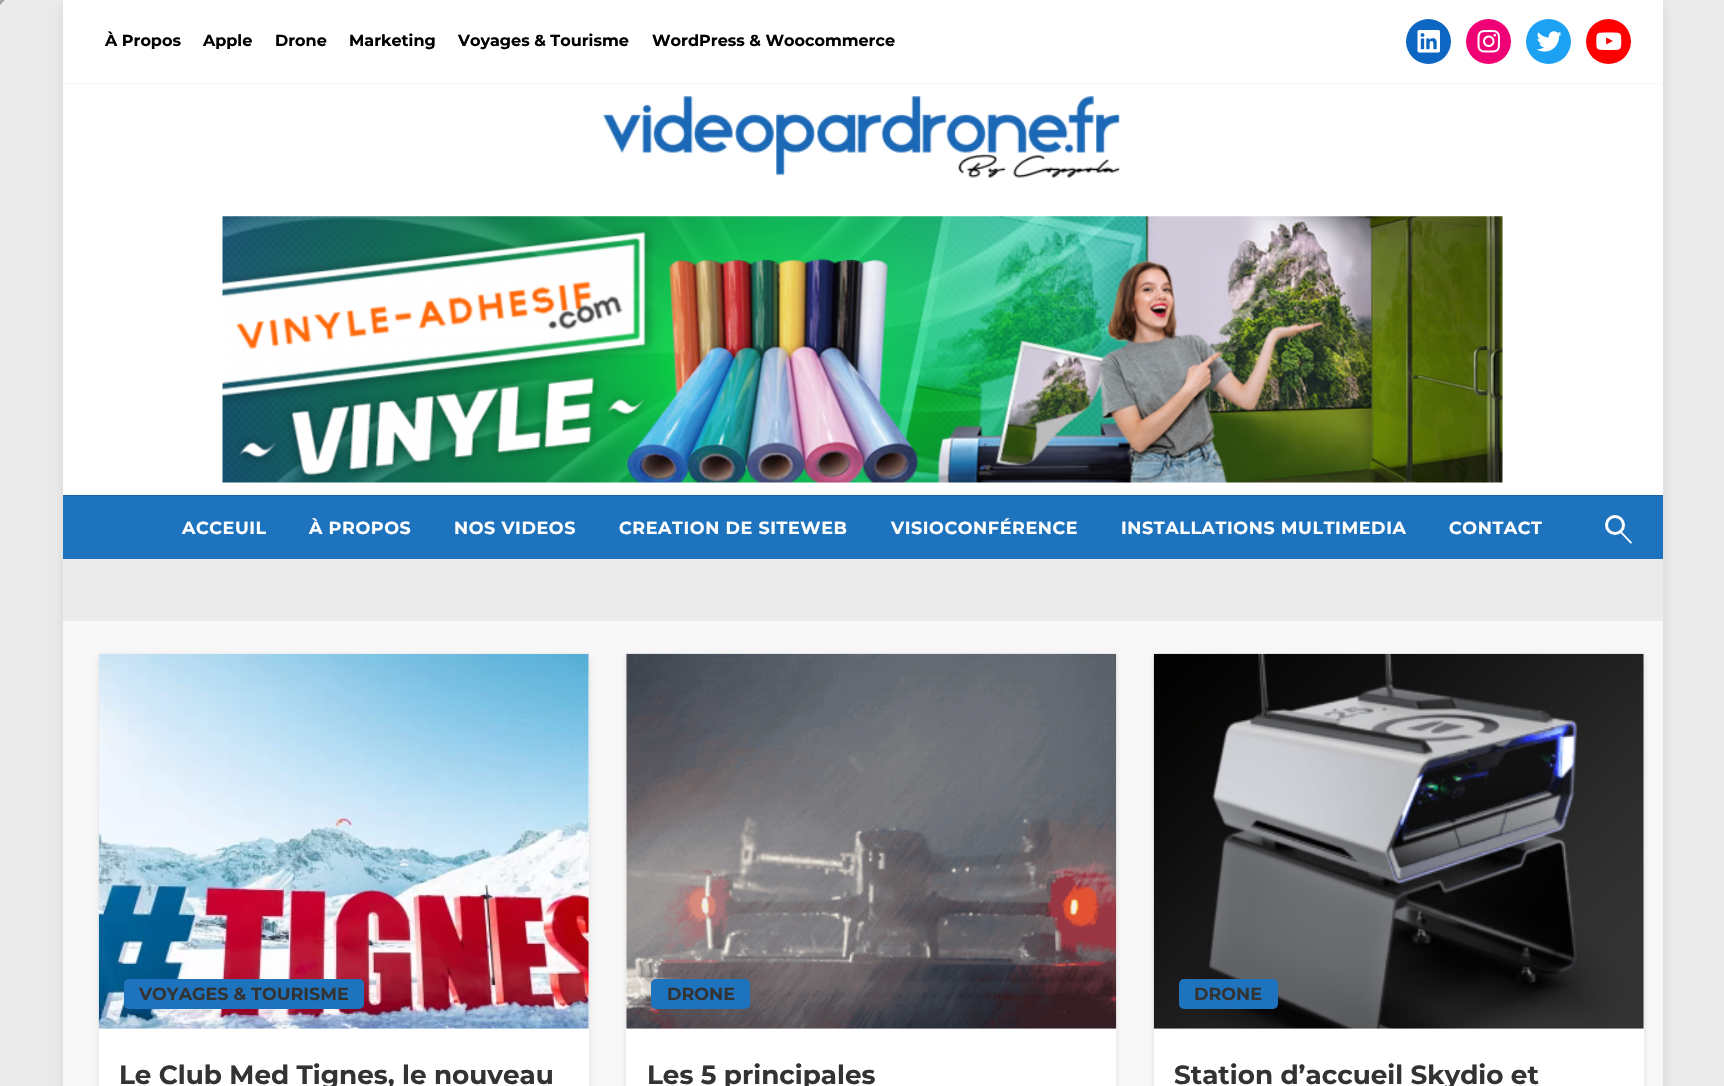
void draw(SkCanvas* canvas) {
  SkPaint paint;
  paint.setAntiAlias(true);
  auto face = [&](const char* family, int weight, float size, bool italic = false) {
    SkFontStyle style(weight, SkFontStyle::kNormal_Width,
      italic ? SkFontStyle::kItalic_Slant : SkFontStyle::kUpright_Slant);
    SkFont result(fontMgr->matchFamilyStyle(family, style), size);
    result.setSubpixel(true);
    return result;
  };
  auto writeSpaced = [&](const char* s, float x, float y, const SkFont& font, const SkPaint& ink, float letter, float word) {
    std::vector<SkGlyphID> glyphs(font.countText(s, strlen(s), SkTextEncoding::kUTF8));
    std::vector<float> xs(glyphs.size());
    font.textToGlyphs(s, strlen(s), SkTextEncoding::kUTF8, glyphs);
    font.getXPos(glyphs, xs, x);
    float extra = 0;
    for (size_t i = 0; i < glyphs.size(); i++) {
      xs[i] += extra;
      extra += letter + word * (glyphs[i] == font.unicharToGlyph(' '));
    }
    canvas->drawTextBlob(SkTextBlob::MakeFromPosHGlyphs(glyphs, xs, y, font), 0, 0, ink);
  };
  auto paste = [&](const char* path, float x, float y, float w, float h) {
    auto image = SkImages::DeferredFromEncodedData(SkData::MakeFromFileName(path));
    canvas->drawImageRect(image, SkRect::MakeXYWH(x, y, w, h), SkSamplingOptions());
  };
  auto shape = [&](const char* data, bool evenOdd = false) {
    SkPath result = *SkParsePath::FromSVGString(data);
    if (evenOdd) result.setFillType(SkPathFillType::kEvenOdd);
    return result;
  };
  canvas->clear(0xffebebeb);
  paint.setColor(0xff9f9f9f);
  canvas->drawPath(shape("M0 0H5L2.5 2.5Z"), paint);
  paint.setColor(0xffeeeeee);
  canvas->drawPath(shape("M5 0V5L2.5 2.5Z"), paint);
  canvas->drawPath(shape("M5 5H0L2.5 2.5Z"), paint);
  paint.setColor(0xff9f9f9f);
  canvas->drawPath(shape("M0 5V0L2.5 2.5Z"), paint);
  canvas->save();
  canvas->clipPath(shape("M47 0H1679V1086H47ZM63 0H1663V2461H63Z", true), true);
  paint.setColor(0x1a000000);
  paint.setMaskFilter(SkMaskFilter::MakeBlur(kNormal_SkBlurStyle, 5));
  canvas->drawRect(SkRect::MakeXYWH(63, 5, 1600, 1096), paint);
  paint.setMaskFilter(nullptr);
  canvas->restore();
  paint.setColor(0xffffffff);
  canvas->drawRect(SkRect::MakeXYWH(63, 0, 1600, 83), paint);
  paint.setColor(0xfff6f6f6);
  canvas->drawRect(SkRect::MakeXYWH(63, 83, 1600, 1), paint);
  paint.setColor(0xff0d66c2);
  canvas->drawCircle(1428.5f, 41.5f, 22.5f, paint);
  paste("img/1.png", 1417, 30, 23, 23);
  paint.setColor(0xfff00075);
  canvas->drawCircle(1488.5f, 41.5f, 22.5f, paint);
  paste("img/2.png", 1477, 30, 23, 23);
  paint.setColor(0xff1da1f2);
  canvas->drawCircle(1548.5f, 41.5f, 22.5f, paint);
  paste("img/3.png", 1536, 31, 26, 21);
  paint.setColor(0xffff0000);
  canvas->drawCircle(1608.5f, 41.5f, 22.5f, paint);
  paste("img/4.png", 1596, 32, 26, 19);
  paint.setColor(0xffffffff);
  canvas->drawRect(SkRect::MakeXYWH(63, 84, 1600, 411), paint);
  paste("img/5.png", 602, 96, 519, 82);
  paste("img/6.png", 222, 216, 1281, 267);
  paint.setColor(0xff1e73be);
  canvas->drawRect(SkRect::MakeXYWH(63, 496, 1600, 63), paint);
  paint.setColor(0xff1a65a7);
  canvas->drawRect(SkRect::MakeXYWH(63, 495, 1600, 1), paint);
  paint.setStroke(true);
  paint.setStrokeWidth(3);
  paint.setColor(0xffffffff);
  canvas->drawCircle(1615, 525, 8.5f, paint);
  paint.setStroke(false);
  canvas->drawPath(shape("M1621.5 531.5L1632 542.5C1632 543 1631.5 543.5 1630.5 543.5L1620.5 533C1619.5 532 1621 531 1621.5 531.5Z"), paint);
  paint.setColor(0xa3ffffff);
  canvas->drawRect(SkRect::MakeXYWH(63, 621, 1600, 465), paint);
  paint.setColor(0x1a000000);
  paint.setMaskFilter(SkMaskFilter::MakeBlur(kNormal_SkBlurStyle, 3));
  canvas->drawRect(SkRect::MakeXYWH(99, 656, 490, 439), paint);
  paint.setMaskFilter(nullptr);
  paint.setColor(0xffffffff);
  canvas->drawRect(SkRect::MakeXYWH(99, 654, 490, 432), paint);
  paste("img/7.png", 98, 653, 491, 376);
  paint.setColor(0xff1e73be);
  canvas->drawRoundRect(SkRect::MakeXYWH(124, 979, 240, 30), 5, 5, paint);
  paint.setColor(0x1a000000);
  paint.setMaskFilter(SkMaskFilter::MakeBlur(kNormal_SkBlurStyle, 3));
  canvas->drawRect(SkRect::MakeXYWH(626, 656, 490, 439), paint);
  paint.setMaskFilter(nullptr);
  paint.setColor(0xffffffff);
  canvas->drawRect(SkRect::MakeXYWH(626, 654, 490, 432), paint);
  paste("img/8.png", 626, 653, 491, 376);
  paint.setColor(0xff1e73be);
  canvas->drawRoundRect(SkRect::MakeXYWH(651, 979, 99, 30), 5, 5, paint);
  paint.setColor(0x1a000000);
  paint.setMaskFilter(SkMaskFilter::MakeBlur(kNormal_SkBlurStyle, 3));
  canvas->drawRect(SkRect::MakeXYWH(1154, 656, 490, 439), paint);
  paint.setMaskFilter(nullptr);
  paint.setColor(0xffffffff);
  canvas->drawRect(SkRect::MakeXYWH(1154, 654, 490, 432), paint);
  paste("img/9.png", 1153, 653, 491, 376);
  paint.setColor(0xff1e73be);
  canvas->drawRoundRect(SkRect::MakeXYWH(1179, 979, 99, 30), 5, 5, paint);
  auto f0 = face("Montserrat", 700, 16);
  paint.setColor(0xff000000);
  {
    const struct { const char* s; float x, y; } items[] = {
      {"À Propos", 105, 46},
      {"Apple", 203, 46},
      {"Drone", 275, 46},
      {"Marketing", 349, 46},
      {"Voyages & Tourisme", 458, 46},
      {"WordPress & Woocommerce", 652, 46},
    };
    for (auto [s, x, y] : items) {
      canvas->drawString(s, x, y, f0, paint);
    }
  }
  auto f1 = face("Montserrat", 700, 17.5f);
  paint.setColor(0xffffffff);
  {
    const struct { const char* s; float x, y; } items[] = {
      {"ACCEUIL", 182, 534},
      {"À PROPOS", 309, 534},
      {"NOS VIDEOS", 454, 534},
      {"CREATION DE SITEWEB", 619, 534},
      {"VISIOCONFÉRENCE", 891, 534},
      {"INSTALLATIONS MULTIMEDIA", 1121, 534},
      {"CONTACT", 1449, 534},
    };
    for (auto [s, x, y] : items) {
      writeSpaced(s, x, y, f1, paint, 0.6f, 0);
    }
  }
  paint.setColor(0xff333333);
  canvas->drawString("VOYAGES & TOURISME", 139, 1000, f1, paint);
  auto f2 = face("Montserrat", 700, 26.25f);
  canvas->drawString("Le Club Med Tignes, le nouveau", 119, 1084, f2, paint);
  canvas->drawString("DRONE", 667, 1000, f1, paint);
  canvas->drawString("Les 5 principales", 647, 1084, f2, paint);
  canvas->drawString("DRONE", 1194, 1000, f1, paint);
  canvas->drawString("Station d’accueil Skydio et", 1174, 1084, f2, paint);
}
